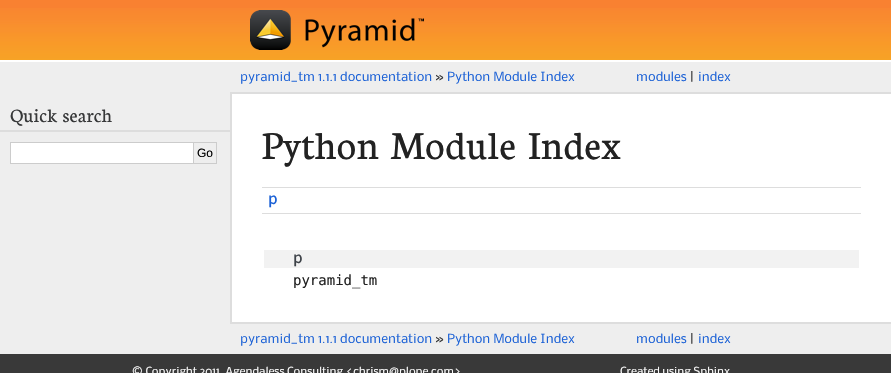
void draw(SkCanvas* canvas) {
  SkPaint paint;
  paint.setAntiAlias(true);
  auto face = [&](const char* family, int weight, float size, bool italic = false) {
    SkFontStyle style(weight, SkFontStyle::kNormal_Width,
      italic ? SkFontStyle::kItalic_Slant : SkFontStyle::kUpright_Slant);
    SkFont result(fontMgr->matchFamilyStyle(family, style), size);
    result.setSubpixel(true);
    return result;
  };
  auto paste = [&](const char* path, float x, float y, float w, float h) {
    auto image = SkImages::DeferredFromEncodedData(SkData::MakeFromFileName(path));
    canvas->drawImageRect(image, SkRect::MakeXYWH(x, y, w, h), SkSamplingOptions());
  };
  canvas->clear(0xff393939);
  paint.setColor(0xfff98131);
  canvas->drawRect(SkRect::MakeXYWH(0, 0, 891, 8), paint);
  paste("img/1.png", 0, 8, 891, 52);
  paint.setColor(0xffffffff);
  canvas->drawRect(SkRect::MakeXYWH(0, 60, 891, 2), paint);
  paste("img/2.png", 250, 10, 174, 40);
  {
    const struct { float x, y, w, h; SkColor color; } items[] = {
      {0, 62, 891, 30, 0xffeeeeee},
      {0, 92, 230, 232, 0xffeeeeee},
      {0, 130, 230, 2, 0xffdddddd},
    };
    for (auto [x, y, w, h, color] : items) {
      paint.setColor(color);
      canvas->drawRect(SkRect::MakeXYWH(x, y, w, h), paint);
    }
  }
  paint.setColor(0xffffffff);
  canvas->drawRect(SkRect::MakeXYWH(10.5f, 142.5f, 183, 21), paint);
  paint.setStroke(true);
  paint.setStrokeWidth(1);
  paint.setColor(0xffcccccc);
  canvas->drawRect(SkRect::MakeXYWH(10.5f, 142.5f, 183, 21), paint);
  paint.setStroke(false);
  {
    const struct { float x, y, w, h; SkColor color; } items[] = {
      {194, 142, 23, 1, 0xffcccccc},
      {216, 142, 1, 22, 0xffcccccc},
      {194, 163, 23, 1, 0xffcccccc},
      {232, 94, 659, 228, 0xffffffff},
      {230, 92, 661, 2, 0xffdddddd},
      {230, 322, 661, 2, 0xffdddddd},
      {230, 92, 2, 232, 0xffdddddd},
      {262, 187, 599, 1, 0xffdddddd},
      {262, 213, 599, 1, 0xffdddddd},
      {264, 250, 595, 18, 0xfff2f2f2},
      {0, 324, 891, 30, 0xffeeeeee},
    };
    for (auto [x, y, w, h, color] : items) {
      paint.setColor(color);
      canvas->drawRect(SkRect::MakeXYWH(x, y, w, h), paint);
    }
  }
  auto f0 = face("Nobile", 400, 12);
  paint.setColor(0xff1b61d6);
  canvas->drawString("pyramid_tm 1.1.1 documentation", 240, 81, f0, paint);
  paint.setColor(0xff373839);
  canvas->drawString("»", 435, 81, f0, paint);
  paint.setColor(0xff1b61d6);
  canvas->drawString("Python Module Index", 447, 81, f0, paint);
  canvas->drawString("modules", 636, 81, f0, paint);
  paint.setColor(0xff373839);
  canvas->drawString("|", 690, 81, f0, paint);
  paint.setColor(0xff1b61d6);
  canvas->drawString("index", 698, 81, f0, paint);
  auto f1 = face("Neuton", 500, 16.75f);
  paint.setColor(0xff373839);
  canvas->drawString("Quick search", 10, 122, f1, paint);
  auto f2 = face("Liberation Sans", 400, 12);
  paint.setColor(0xff000000);
  canvas->drawString("Go", 197, 157, f2, paint);
  auto f3 = face("Neuton", 500, 35);
  paint.setColor(0xff222222);
  canvas->drawString("Python Module Index", 262, 159, f3, paint);
  auto f4 = face("Nobile", 700, 14);
  paint.setColor(0xff1b61d6);
  canvas->drawString("p", 268, 204, f4, paint);
  paint.setColor(0xff3e4349);
  canvas->drawString("p", 293, 263, f4, paint);
  auto f5 = face("DejaVu Sans Mono", 400, 14);
  paint.setColor(0xff222222);
  canvas->drawString("pyramid_tm", 293, 285, f5, paint);
  paint.setColor(0xff1b61d6);
  canvas->drawString("pyramid_tm 1.1.1 documentation", 240, 343, f0, paint);
  paint.setColor(0xff373839);
  canvas->drawString("»", 435, 343, f0, paint);
  paint.setColor(0xff1b61d6);
  canvas->drawString("Python Module Index", 447, 343, f0, paint);
  canvas->drawString("modules", 636, 343, f0, paint);
  paint.setColor(0xff373839);
  canvas->drawString("|", 690, 343, f0, paint);
  paint.setColor(0xff1b61d6);
  canvas->drawString("index", 698, 343, f0, paint);
  auto f6 = face("Nobile", 400, 10.5f);
  paint.setColor(0xffffffff);
  canvas->drawString("© Copyright 2011, Agendaless Consulting <chrism@plope.com>", 132, 375, f6, paint);
  canvas->drawString("Created using Sphinx", 620, 375, f6, paint);
}
